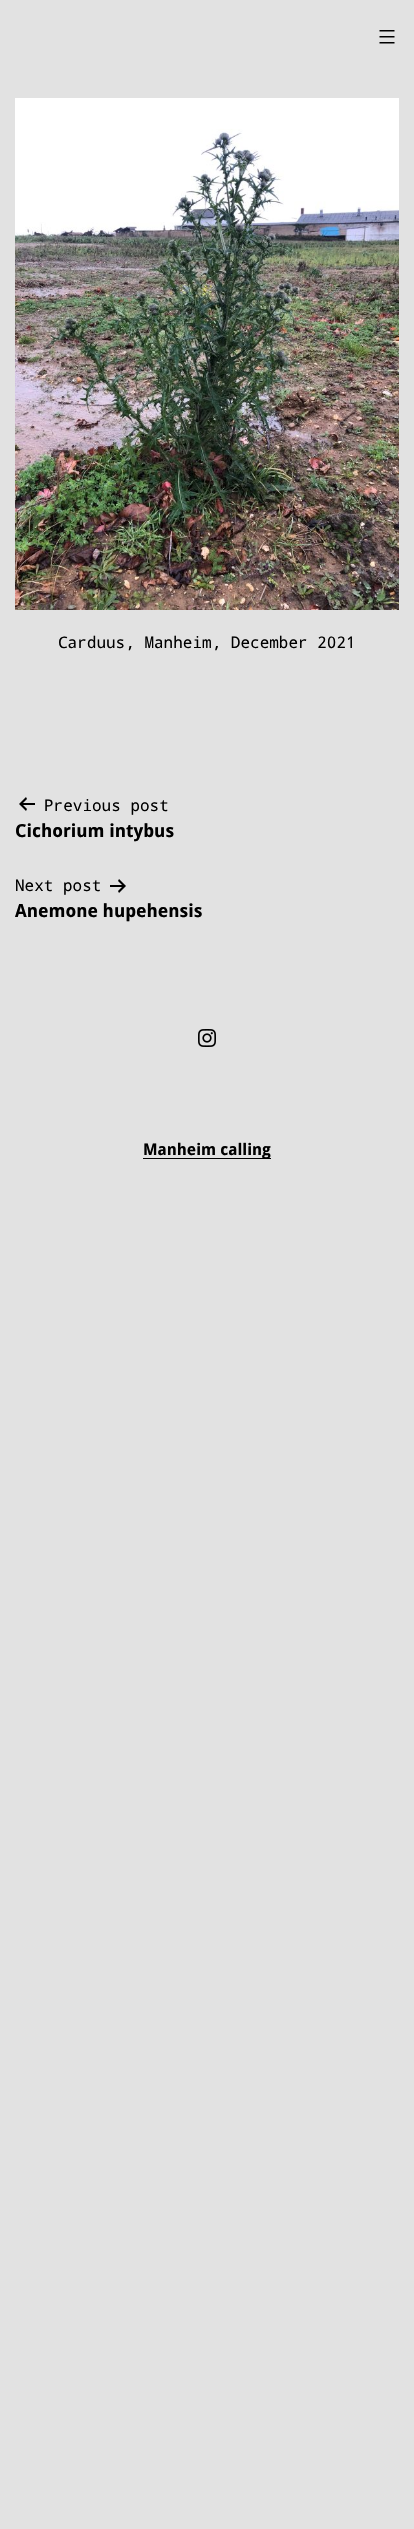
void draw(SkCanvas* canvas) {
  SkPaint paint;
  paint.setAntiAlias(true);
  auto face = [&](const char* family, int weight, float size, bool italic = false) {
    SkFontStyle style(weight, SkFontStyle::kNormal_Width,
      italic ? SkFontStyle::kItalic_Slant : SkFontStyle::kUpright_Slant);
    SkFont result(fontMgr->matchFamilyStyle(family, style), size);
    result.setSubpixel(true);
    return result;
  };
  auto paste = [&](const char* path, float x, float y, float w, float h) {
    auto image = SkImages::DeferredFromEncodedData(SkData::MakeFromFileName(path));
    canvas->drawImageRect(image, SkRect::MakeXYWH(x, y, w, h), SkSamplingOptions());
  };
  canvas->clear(0xffe2e2e2);
  paste("img/1.png", 379, 30, 16, 14);
  paste("img/2.png", 15, 98, 384, 512);
  paste("img/3.png", 19, 797, 16, 14);
  paste("img/4.png", 110, 879, 16, 14);
  paste("img/5.png", 198, 1029, 18, 18);
  paint.setColor(0xff000000);
  canvas->drawRect(SkRect::MakeXYWH(143, 1158, 128, 1), paint);
  auto f0 = face("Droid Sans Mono", 400, 16);
  canvas->drawString("Carduus, Manheim, December 2021", 58, 648, f0, paint);
  canvas->drawString("Previous post", 44, 811, f0, paint);
  auto f1 = face("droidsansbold", 700, 18);
  canvas->drawString("Cichorium intybus", 15, 837, f1, paint);
  canvas->drawString("Next post", 15, 891, f0, paint);
  canvas->drawString("Anemone hupehensis", 15, 917, f1, paint);
  auto f2 = face("droidsansbold", 700, 16);
  canvas->drawString("Manheim calling", 143, 1155, f2, paint);
}
